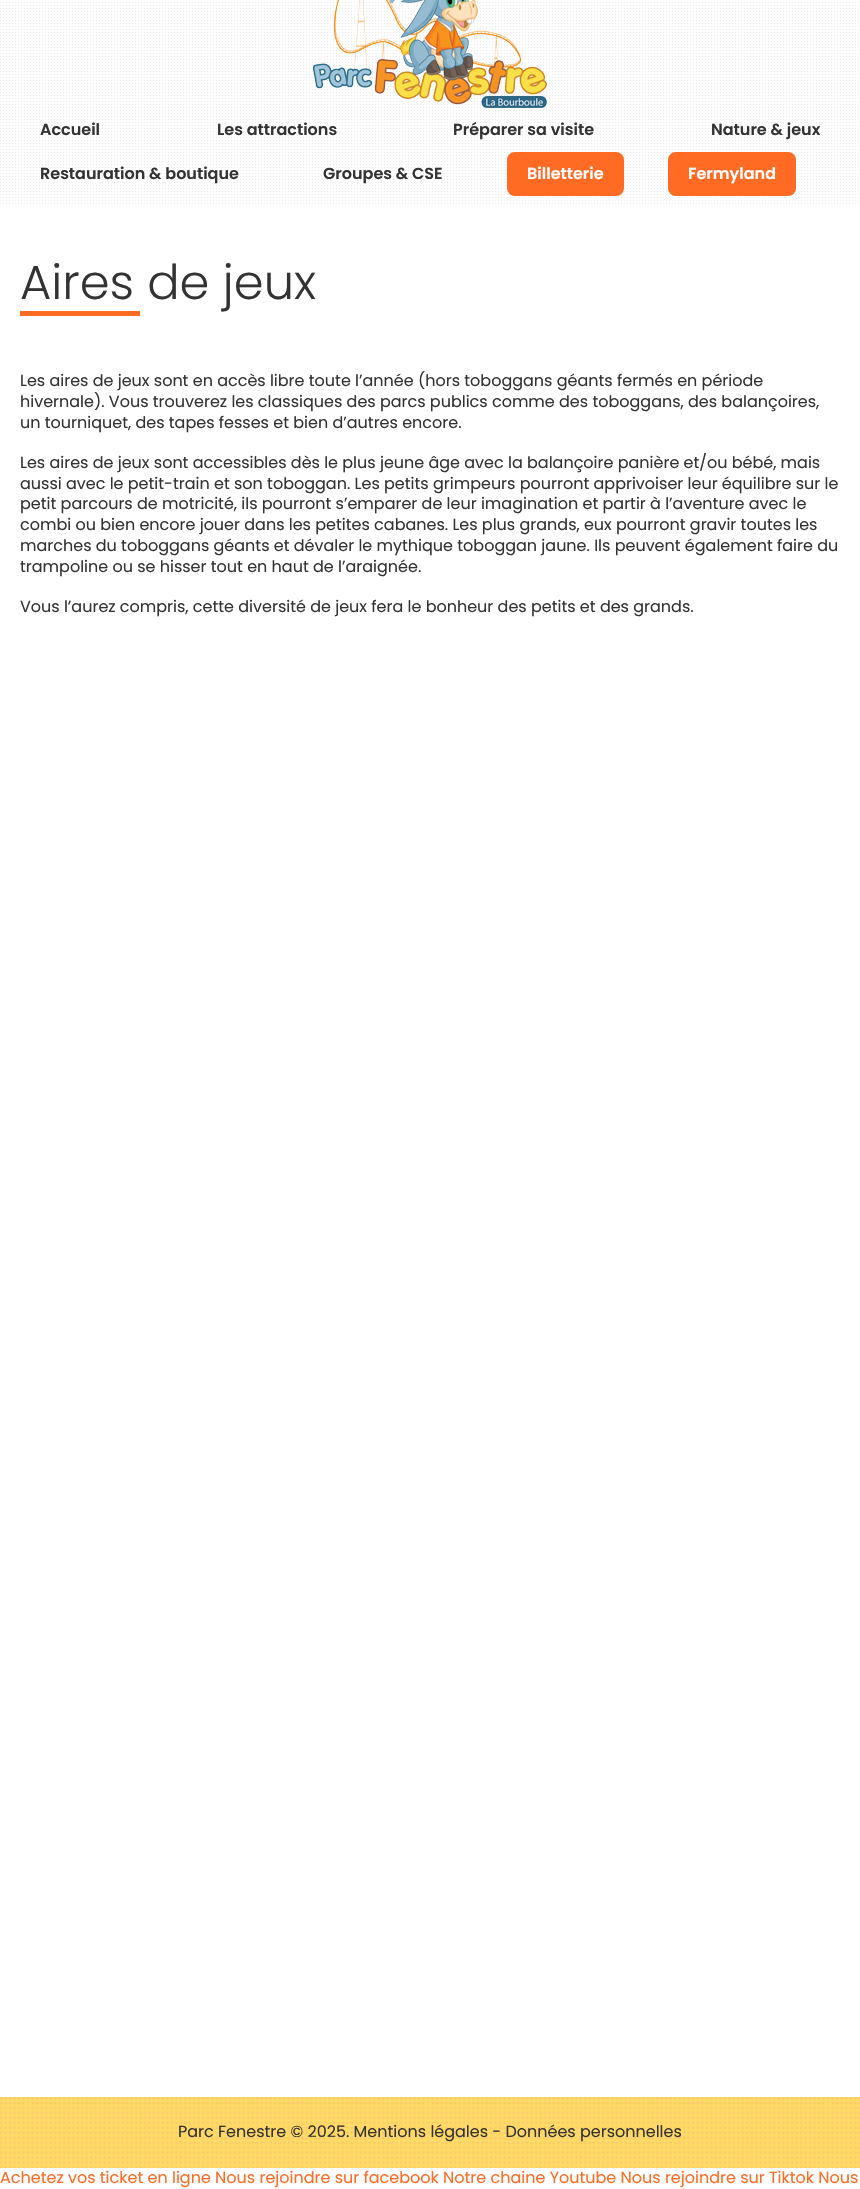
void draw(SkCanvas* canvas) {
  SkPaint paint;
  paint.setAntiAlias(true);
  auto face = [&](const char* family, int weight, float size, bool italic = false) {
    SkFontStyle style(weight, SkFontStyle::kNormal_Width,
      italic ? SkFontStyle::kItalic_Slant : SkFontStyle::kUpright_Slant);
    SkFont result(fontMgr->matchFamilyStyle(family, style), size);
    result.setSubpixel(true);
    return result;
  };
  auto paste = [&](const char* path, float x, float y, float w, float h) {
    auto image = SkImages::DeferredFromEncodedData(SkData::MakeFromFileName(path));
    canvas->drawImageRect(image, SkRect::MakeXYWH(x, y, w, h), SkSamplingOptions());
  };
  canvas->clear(0xffffffff);
  paste("img/1.png", 0, 2, 859, 202);
  paste("img/2.png", 312, 0, 236, 108);
  paint.setColor(0xffff6b22);
  canvas->drawRoundRect(SkRect::MakeXYWH(507, 152, 117, 44), 8, 8, paint);
  canvas->drawRoundRect(SkRect::MakeXYWH(668, 152, 128, 44), 8, 8, paint);
  canvas->drawRect(SkRect::MakeXYWH(20, 311, 120, 5), paint);
  paste("img/3.png", 0, 2097, 860, 71);
  auto f0 = face("Poppins", 600, 16);
  paint.setColor(0xff333333);
  {
    const struct { const char* s; float x, y; } items[] = {
      {"Accueil", 40, 135},
      {"Les attractions", 217, 135},
      {"Préparer sa visite", 453, 135},
      {"Nature & jeux", 711, 135},
      {"Restauration & boutique", 40, 179},
      {"Groupes & CSE", 323, 179},
    };
    for (auto [s, x, y] : items) {
      canvas->drawString(s, x, y, f0, paint);
    }
  }
  paint.setColor(0xffffffff);
  canvas->drawString("Billetterie", 527, 179, f0, paint);
  canvas->drawString("Fermyland", 688, 179, f0, paint);
  auto f1 = face("Poppins", 300, 48);
  paint.setColor(0xff333333);
  canvas->drawString("Aires de jeux", 20, 299, f1, paint);
  auto f2 = face("Poppins", 400, 16);
  {
    const struct { const char* s; float x, y; } items[] = {
      {"Les aires de jeux sont en accès libre toute l’année (hors toboggans géants fermés en période", 20, 386},
      {"hivernale). Vous trouverez les classiques des parcs publics comme des toboggans, des balançoires,", 20, 407},
      {"un tourniquet, des tapes fesses et bien d’autres encore.", 20, 428},
      {"Les aires de jeux sont accessibles dès le plus jeune âge avec la balançoire panière et/ou bébé, mais", 20, 468},
      {"aussi avec le petit-train et son toboggan. Les petits grimpeurs pourront apprivoiser leur équilibre sur le", 20, 489},
      {"petit parcours de motricité, ils pourront s’emparer de leur imagination et partir à l’aventure avec le", 20, 509},
      {"combi ou bien encore jouer dans les petites cabanes. Les plus grands, eux pourront gravir toutes les", 20, 530},
      {"marches du toboggans géants et dévaler le mythique toboggan jaune. Ils peuvent également faire du", 20, 551},
      {"trampoline ou se hisser tout en haut de l’araignée.", 20, 572},
      {"Vous l’aurez compris, cette diversité de jeux fera le bonheur des petits et des grands.", 20, 612},
      {"Parc Fenestre © 2025. Mentions légales - Données personnelles", 178, 2137},
    };
    for (auto [s, x, y] : items) {
      canvas->drawString(s, x, y, f2, paint);
    }
  }
  paint.setColor(0xffff6b22);
  canvas->drawString("Achetez vos ticket en ligne Nous rejoindre sur facebook Notre chaine Youtube Nous rejoindre sur Tiktok Nous", 0, 2183, f2, paint);
}
